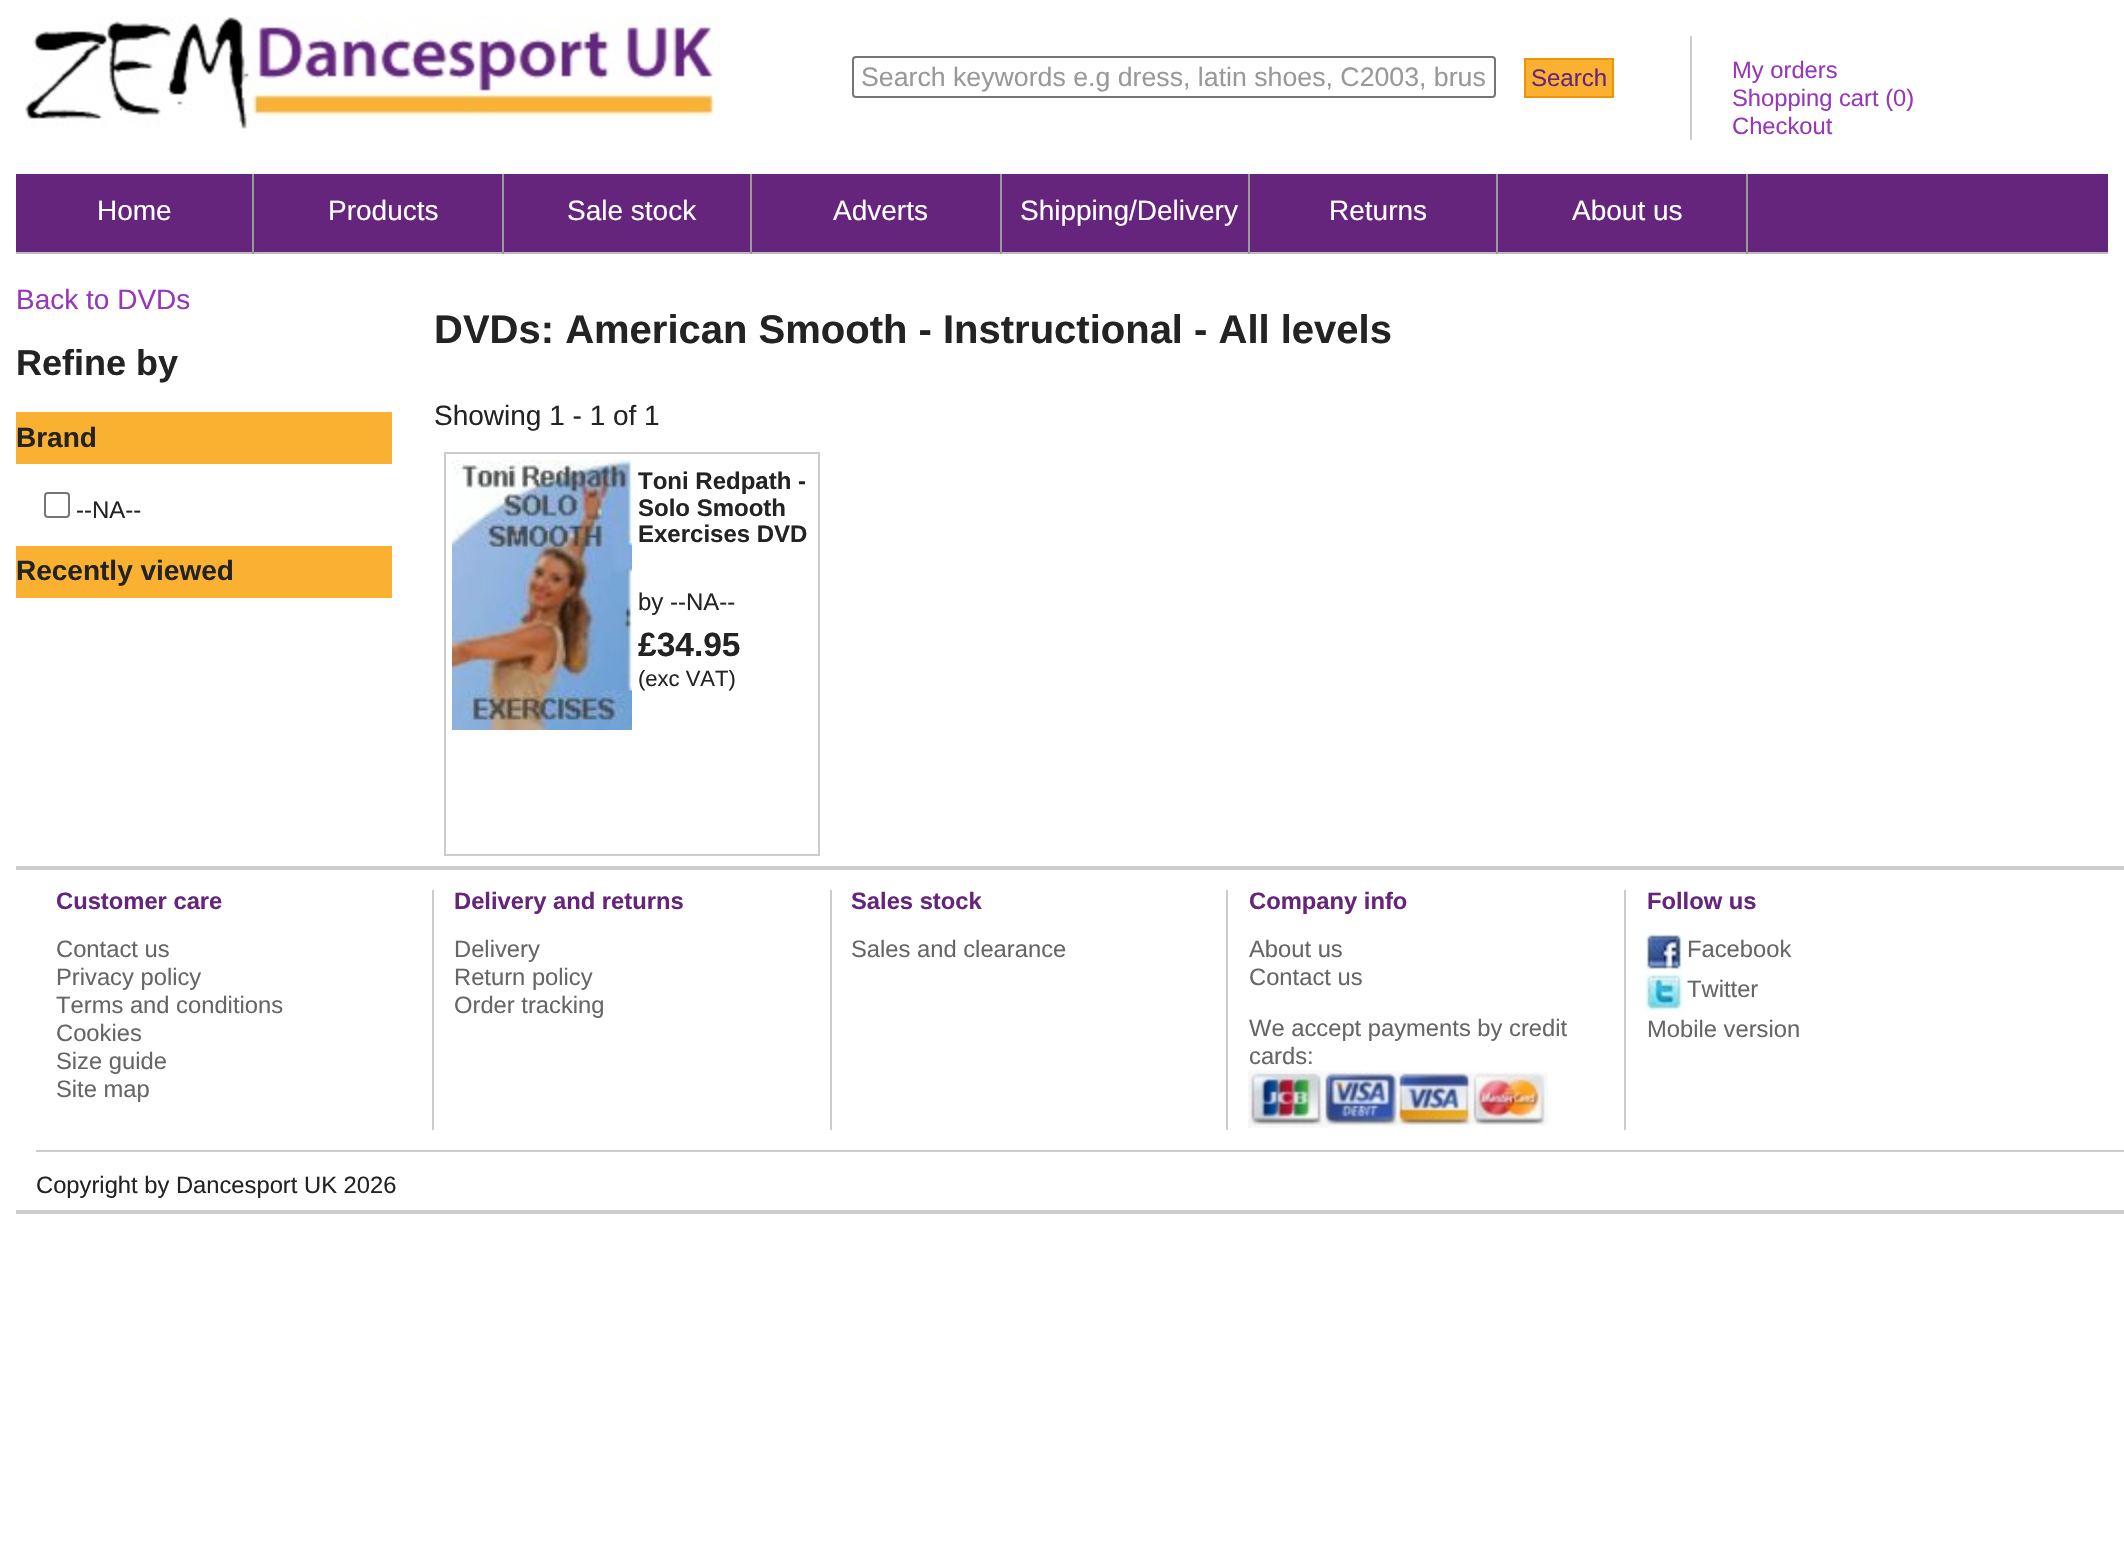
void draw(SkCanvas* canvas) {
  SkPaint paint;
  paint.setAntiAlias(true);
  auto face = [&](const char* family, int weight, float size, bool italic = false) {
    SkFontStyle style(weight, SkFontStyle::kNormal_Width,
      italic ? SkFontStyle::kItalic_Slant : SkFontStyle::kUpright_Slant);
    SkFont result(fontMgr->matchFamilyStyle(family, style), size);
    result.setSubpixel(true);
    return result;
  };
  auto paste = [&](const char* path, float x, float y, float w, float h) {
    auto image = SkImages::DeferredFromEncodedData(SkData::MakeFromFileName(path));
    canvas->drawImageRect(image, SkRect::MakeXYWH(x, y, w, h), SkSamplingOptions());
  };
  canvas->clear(0xffffffff);
  paste("img/1.png", 25, 16, 695, 113);
  paint.setStroke(true);
  paint.setStrokeWidth(2);
  paint.setColor(0xff767676);
  canvas->drawRoundRect(SkRect::MakeXYWH(853, 57, 642, 40), 3, 3, paint);
  paint.setStroke(false);
  paint.setColor(0xfffab131);
  canvas->drawRect(SkRect::MakeXYWH(1525, 59, 88, 38), paint);
  paint.setStroke(true);
  paint.setColor(0xffed9605);
  canvas->drawRect(SkRect::MakeXYWH(1525, 59, 88, 38), paint);
  paint.setStroke(false);
  {
    const struct { float x, y, w, h; SkColor color; } items[] = {
      {1690, 36, 2, 104, 0xffcccccc},
      {16, 174, 2092, 78, 0xff65257c},
      {16, 252, 2092, 2, 0xffbbbbbb},
      {252, 174, 2, 80, 0xff999999},
      {502, 174, 2, 80, 0xff999999},
      {750, 174, 2, 80, 0xff999999},
      {1000, 174, 2, 80, 0xff999999},
      {1248, 174, 2, 80, 0xff999999},
      {1496, 174, 2, 80, 0xff999999},
      {1746, 174, 2, 80, 0xff999999},
      {16, 412, 376, 52, 0xfffab131},
    };
    for (auto [x, y, w, h, color] : items) {
      paint.setColor(color);
      canvas->drawRect(SkRect::MakeXYWH(x, y, w, h), paint);
    }
  }
  paint.setStroke(true);
  paint.setColor(0xff767676);
  canvas->drawRoundRect(SkRect::MakeXYWH(45, 493, 24, 24), 3, 3, paint);
  paint.setStroke(false);
  paint.setColor(0xfffab131);
  canvas->drawRect(SkRect::MakeXYWH(16, 546, 376, 52), paint);
  paint.setStroke(true);
  paint.setColor(0xffcccccc);
  canvas->drawRect(SkRect::MakeXYWH(445, 453, 374, 402), paint);
  paste("img/2.png", 452, 460, 180, 270);
  paint.setStroke(false);
  {
    const struct { float x, y, w, h; SkColor color; } items[] = {
      {16, 866, 2108, 4, 0xffcccccc},
      {16, 1210, 2108, 4, 0xffcccccc},
      {36, 1150, 2088, 2, 0xffcccccc},
      {432, 890, 2, 240, 0xffcccccc},
      {830, 890, 2, 240, 0xffcccccc},
      {1226, 890, 2, 240, 0xffcccccc},
      {1624, 890, 2, 240, 0xffcccccc},
    };
    for (auto [x, y, w, h, color] : items) {
      paint.setColor(color);
      canvas->drawRect(SkRect::MakeXYWH(x, y, w, h), paint);
    }
  }
  paste("img/3.png", 1248, 1070, 300, 58);
  paste("img/4.png", 1646, 934, 36, 36);
  paste("img/5.png", 1646, 974, 36, 36);
  auto f0 = face("Liberation Sans", 400, 26.7f);
  paint.setColor(0xff999999);
  canvas->drawString("Search keywords e.g dress, latin shoes, C2003, brus", 861, 86, f0, paint);
  auto f1 = face("Liberation Sans", 400, 24);
  paint.setColor(0xff65257c);
  canvas->drawString("Search", 1531, 86, f1, paint);
  auto f2 = face("Liberation Sans", 400, 23.75f);
  paint.setColor(0xff9737bb);
  {
    const struct { const char* s; float x, y; } items[] = {
      {"My orders", 1732, 78},
      {"Shopping cart (0)", 1732, 106},
      {"Checkout", 1732, 134},
    };
    for (auto [s, x, y] : items) {
      canvas->drawString(s, x, y, f2, paint);
    }
  }
  auto f3 = face("Liberation Sans", 400, 28);
  paint.setColor(0xffffffff);
  {
    const struct { const char* s; float x, y; } items[] = {
      {"Home", 97, 220},
      {"Products", 328, 220},
      {"Sale stock", 567, 220},
      {"Adverts", 833, 220},
      {"Shipping/Delivery", 1020, 220},
      {"Returns", 1329, 220},
      {"About us", 1572, 220},
    };
    for (auto [s, x, y] : items) {
      canvas->drawString(s, x, y, f3, paint);
    }
  }
  paint.setColor(0xff9737bb);
  canvas->drawString("Back to DVDs", 16, 309, f3, paint);
  auto f4 = face("Liberation Sans", 700, 36);
  paint.setColor(0xff232323);
  canvas->drawString("Refine by", 16, 375, f4, paint);
  auto f5 = face("Liberation Sans", 700, 28);
  canvas->drawString("Brand", 16, 447, f5, paint);
  canvas->drawString("--NA--", 76, 518, f1, paint);
  canvas->drawString("Recently viewed", 16, 580, f5, paint);
  auto f6 = face("Liberation Sans", 700, 40);
  canvas->drawString("DVDs: American Smooth - Instructional - All levels", 434, 343, f6, paint);
  canvas->drawString("Showing 1 - 1 of 1", 434, 425, f3, paint);
  auto f7 = face("Liberation Sans", 700, 24);
  {
    const struct { const char* s; float x, y; } items[] = {
      {"Toni Redpath -", 638, 489},
      {"Solo Smooth", 638, 516},
      {"Exercises DVD", 638, 542},
    };
    for (auto [s, x, y] : items) {
      canvas->drawString(s, x, y, f7, paint);
    }
  }
  canvas->drawString("by --NA--", 638, 610, f1, paint);
  auto f8 = face("Liberation Sans", 700, 33.5f);
  canvas->drawString("£34.95", 638, 656, f8, paint);
  auto f9 = face("Liberation Sans", 400, 22);
  canvas->drawString("(exc VAT)", 638, 686, f9, paint);
  auto f10 = face("Liberation Sans", 700, 23.75f);
  paint.setColor(0xff65257c);
  canvas->drawString("Customer care", 56, 909, f10, paint);
  paint.setColor(0xff666666);
  {
    const struct { const char* s; float x, y; } items[] = {
      {"Contact us", 56, 957},
      {"Privacy policy", 56, 985},
      {"Terms and conditions", 56, 1013},
      {"Cookies", 56, 1041},
      {"Size guide", 56, 1069},
      {"Site map", 56, 1097},
    };
    for (auto [s, x, y] : items) {
      canvas->drawString(s, x, y, f2, paint);
    }
  }
  paint.setColor(0xff65257c);
  canvas->drawString("Delivery and returns", 454, 909, f10, paint);
  paint.setColor(0xff666666);
  {
    const struct { const char* s; float x, y; } items[] = {
      {"Delivery", 454, 957},
      {"Return policy", 454, 985},
      {"Order tracking", 454, 1013},
    };
    for (auto [s, x, y] : items) {
      canvas->drawString(s, x, y, f2, paint);
    }
  }
  paint.setColor(0xff65257c);
  canvas->drawString("Sales stock", 851, 909, f10, paint);
  paint.setColor(0xff666666);
  canvas->drawString("Sales and clearance", 851, 957, f2, paint);
  paint.setColor(0xff65257c);
  canvas->drawString("Company info", 1249, 909, f10, paint);
  paint.setColor(0xff666666);
  {
    const struct { const char* s; float x, y; } items[] = {
      {"About us", 1249, 957},
      {"Contact us", 1249, 985},
      {"We accept payments by credit", 1249, 1036},
      {"cards:", 1249, 1064},
    };
    for (auto [s, x, y] : items) {
      canvas->drawString(s, x, y, f2, paint);
    }
  }
  paint.setColor(0xff65257c);
  canvas->drawString("Follow us", 1647, 909, f10, paint);
  paint.setColor(0xff666666);
  {
    const struct { const char* s; float x, y; } items[] = {
      {"Facebook", 1687, 957},
      {"Twitter", 1687, 997},
      {"Mobile version", 1647, 1037},
    };
    for (auto [s, x, y] : items) {
      canvas->drawString(s, x, y, f2, paint);
    }
  }
  paint.setColor(0xff232323);
  canvas->drawString("Copyright by Dancesport UK 2026", 36, 1193, f2, paint);
}
